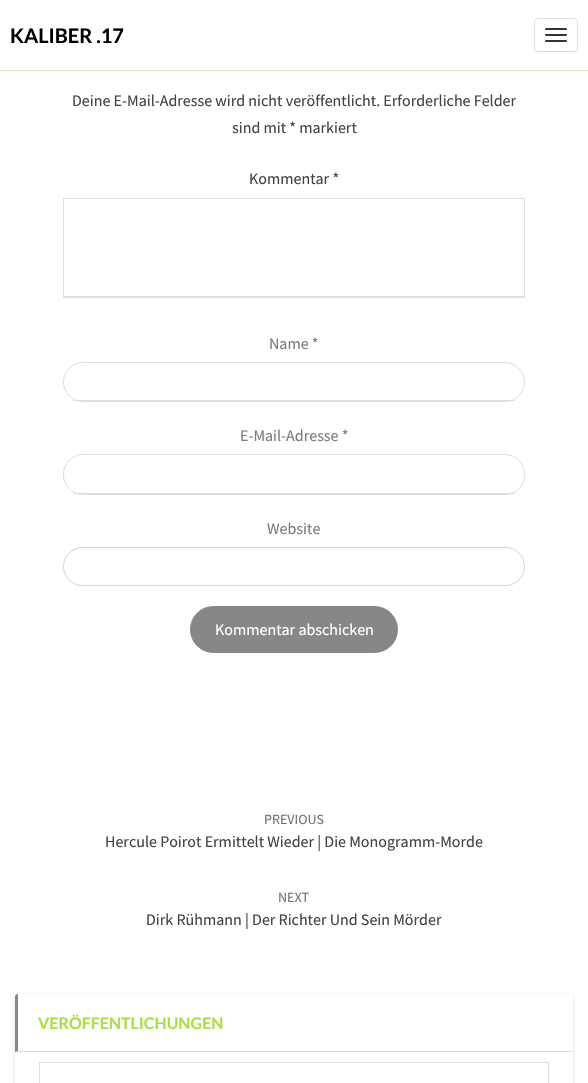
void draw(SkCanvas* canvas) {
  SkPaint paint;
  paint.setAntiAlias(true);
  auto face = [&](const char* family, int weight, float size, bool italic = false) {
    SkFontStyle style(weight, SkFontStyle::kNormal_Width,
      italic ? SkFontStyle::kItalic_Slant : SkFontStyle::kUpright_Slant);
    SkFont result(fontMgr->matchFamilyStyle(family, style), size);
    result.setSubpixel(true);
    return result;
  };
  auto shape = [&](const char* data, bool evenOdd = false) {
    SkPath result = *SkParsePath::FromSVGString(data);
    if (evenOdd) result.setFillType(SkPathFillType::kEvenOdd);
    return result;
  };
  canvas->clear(0xffffffff);
  paint.setColor(0x33646400);
  paint.setMaskFilter(SkMaskFilter::MakeBlur(kNormal_SkBlurStyle, 0.5f));
  canvas->drawRect(SkRect::MakeXYWH(0, 1, 588, 70), paint);
  paint.setMaskFilter(nullptr);
  paint.setColor(0xffffffff);
  canvas->drawRect(SkRect::MakeXYWH(0, 0, 588, 70), paint);
  paint.setStroke(true);
  paint.setStrokeWidth(1);
  paint.setColor(0xffdddddd);
  canvas->drawRoundRect(SkRect::MakeXYWH(534.5f, 18.5f, 43, 33), 3.5f, 3.5f, paint);
  paint.setStroke(false);
  paint.setColor(0xff333333);
  canvas->drawRoundRect(SkRect::MakeXYWH(545, 28, 22, 2), 1, 1, paint);
  canvas->drawRoundRect(SkRect::MakeXYWH(545, 34, 22, 2), 1, 1, paint);
  canvas->drawRoundRect(SkRect::MakeXYWH(545, 40, 22, 2), 1, 1, paint);
  {
    const struct { float x, y, w, h; SkColor color; } items[] = {
      {63, 198, 462, 1, 0xffe0e0e0},
      {524, 198, 1, 100, 0xffe0e0e0},
      {63, 296, 462, 2, 0xffe0e0e0},
      {63, 198, 1, 100, 0xffe0e0e0},
    };
    for (auto [x, y, w, h, color] : items) {
      paint.setColor(color);
      canvas->drawRect(SkRect::MakeXYWH(x, y, w, h), paint);
    }
  }
  paint.setStroke(true);
  paint.setColor(0xffdddddd);
  canvas->drawRoundRect(SkRect::MakeXYWH(63.5f, 362.5f, 461, 39), 19.5f, 19.5f, paint);
  paint.setStroke(false);
  canvas->drawRect(SkRect::MakeXYWH(73, 400, 442, 1), paint);
  paint.setStroke(true);
  canvas->drawRoundRect(SkRect::MakeXYWH(63.5f, 454.5f, 461, 40), 19.5f, 19.5f, paint);
  paint.setStroke(false);
  canvas->drawRect(SkRect::MakeXYWH(73, 493, 442, 1), paint);
  paint.setStroke(true);
  paint.setColor(0xffd4d4d4);
  canvas->drawRoundRect(SkRect::MakeXYWH(63.5f, 547.5f, 461, 38), 19, 19, paint);
  paint.setStroke(false);
  paint.setColor(0xff878787);
  canvas->drawRoundRect(SkRect::MakeXYWH(190, 606, 208, 47), 23.5f, 23.5f, paint);
  paint.setColor(0x26000000);
  paint.setMaskFilter(SkMaskFilter::MakeBlur(kNormal_SkBlurStyle, 1.5f));
  canvas->drawRoundRect(SkRect::MakeXYWH(15, 995, 558, 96), 3, 3, paint);
  paint.setMaskFilter(nullptr);
  paint.setColor(0xffffffff);
  canvas->drawRoundRect(SkRect::MakeXYWH(15, 994, 558, 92), 3, 3, paint);
  paint.setColor(0xffdddddd);
  canvas->drawPath(shape("M573 1052H15L18 1051H573Z"), paint);
  paint.setColor(0xff878787);
  canvas->drawPath(shape("M15 1052L18 1051V994C16 994 15 995 15 997Z"), paint);
  paint.setStroke(true);
  paint.setColor(0xffdddddd);
  canvas->drawRect(SkRect::MakeXYWH(39.5f, 1062.5f, 509, 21), paint);
  auto f0 = face("Lato", 700, 20);
  paint.setStroke(false);
  paint.setColor(0xff000000);
  canvas->drawString("KALIBER .17", 10, 43, f0, paint);
  auto f1 = face("Source Sans Pro", 400, 16);
  paint.setColor(0xff424242);
  {
    const struct { const char* s; float x, y; } items[] = {
      {"Deine E-Mail-Adresse wird nicht veröffentlicht. Erforderliche Felder", 72, 106},
      {"sind mit * markiert", 232, 133},
      {"Kommentar *", 249, 184},
    };
    for (auto [s, x, y] : items) {
      canvas->drawString(s, x, y, f1, paint);
    }
  }
  paint.setColor(0xff7b7b7b);
  {
    const struct { const char* s; float x, y; } items[] = {
      {"Name *", 269, 349},
      {"E-Mail-Adresse *", 240, 441},
      {"Website", 267, 534},
    };
    for (auto [s, x, y] : items) {
      canvas->drawString(s, x, y, f1, paint);
    }
  }
  paint.setColor(0xffffffff);
  canvas->drawString("Kommentar abschicken", 215, 635, f1, paint);
  auto f2 = face("Source Sans Pro", 400, 14);
  paint.setColor(0xff727272);
  canvas->drawString("PREVIOUS", 264, 824, f2, paint);
  paint.setColor(0xff424242);
  canvas->drawString("Hercule Poirot Ermittelt Wieder | Die Monogramm-Morde", 105, 847, f1, paint);
  paint.setColor(0xff727272);
  canvas->drawString("NEXT", 278, 902, f2, paint);
  paint.setColor(0xff424242);
  canvas->drawString("Dirk Rühmann | Der Richter Und Sein Mörder", 146, 925, f1, paint);
  auto f3 = face("Lato", 700, 16);
  paint.setColor(0xffaddd44);
  canvas->drawString("VERÖFFENTLICHUNGEN", 38, 1029, f3, paint);
}
